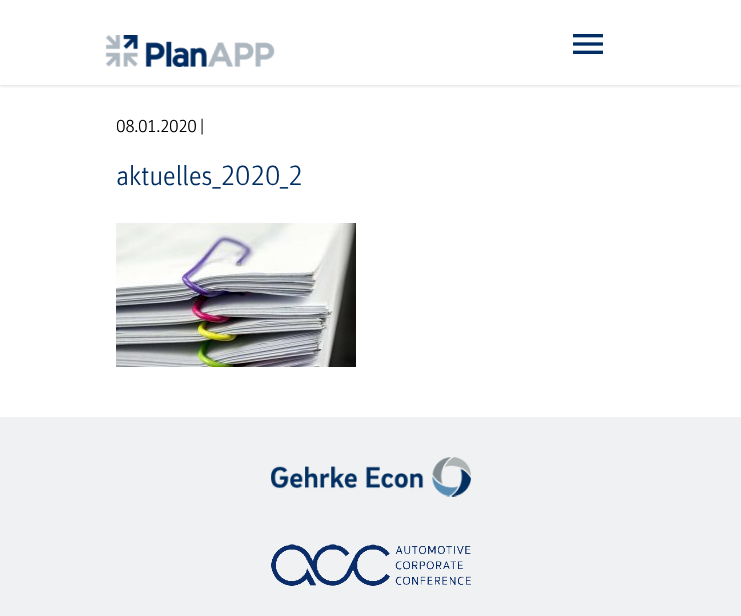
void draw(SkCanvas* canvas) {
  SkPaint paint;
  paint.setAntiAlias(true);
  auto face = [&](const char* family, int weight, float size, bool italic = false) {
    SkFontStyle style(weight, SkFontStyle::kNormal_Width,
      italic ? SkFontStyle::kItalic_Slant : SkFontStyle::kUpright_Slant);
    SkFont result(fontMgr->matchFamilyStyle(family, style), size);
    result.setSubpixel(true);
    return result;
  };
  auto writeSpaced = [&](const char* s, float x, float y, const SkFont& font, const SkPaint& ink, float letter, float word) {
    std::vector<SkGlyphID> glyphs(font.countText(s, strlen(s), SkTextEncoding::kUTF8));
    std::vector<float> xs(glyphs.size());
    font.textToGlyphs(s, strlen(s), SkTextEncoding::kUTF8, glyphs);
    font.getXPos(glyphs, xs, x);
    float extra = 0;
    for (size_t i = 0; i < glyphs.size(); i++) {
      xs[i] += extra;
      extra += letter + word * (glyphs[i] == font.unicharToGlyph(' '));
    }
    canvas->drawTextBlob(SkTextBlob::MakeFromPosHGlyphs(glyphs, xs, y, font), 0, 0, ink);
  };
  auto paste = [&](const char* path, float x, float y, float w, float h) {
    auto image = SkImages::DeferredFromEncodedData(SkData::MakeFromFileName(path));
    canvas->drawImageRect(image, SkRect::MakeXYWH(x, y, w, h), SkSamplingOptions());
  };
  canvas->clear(0xffffffff);
  canvas->save();
  canvas->clipRect(SkRect::MakeXYWH(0, 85, 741, 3));
  paint.setColor(0x33000000);
  paint.setMaskFilter(SkMaskFilter::MakeBlur(kNormal_SkBlurStyle, 2));
  canvas->drawRect(SkRect::MakeXYWH(0, 0, 741, 85), paint);
  paint.setMaskFilter(nullptr);
  canvas->restore();
  paste("img/1.png", 105, 35, 170, 32);
  paste("img/2.png", 573, 34, 30, 20);
  paste("img/3.png", 116, 223, 240, 144);
  paint.setColor(0xfff0f1f3);
  canvas->drawRect(SkRect::MakeXYWH(0, 417, 741, 199), paint);
  paste("img/4.png", 271, 457, 200, 40);
  paste("img/5.png", 271, 544, 200, 42);
  auto f0 = face("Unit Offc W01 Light", 300, 17.5f);
  paint.setColor(0xff000000);
  writeSpaced("08.01.2020 |", 116, 132, f0, paint, -0.5f, 0);
  auto f1 = face("Unit Offc W01 Light", 300, 28);
  paint.setColor(0xff002d63);
  writeSpaced("aktuelles_2020_2", 116, 185, f1, paint, -0.5f, 0);
}
